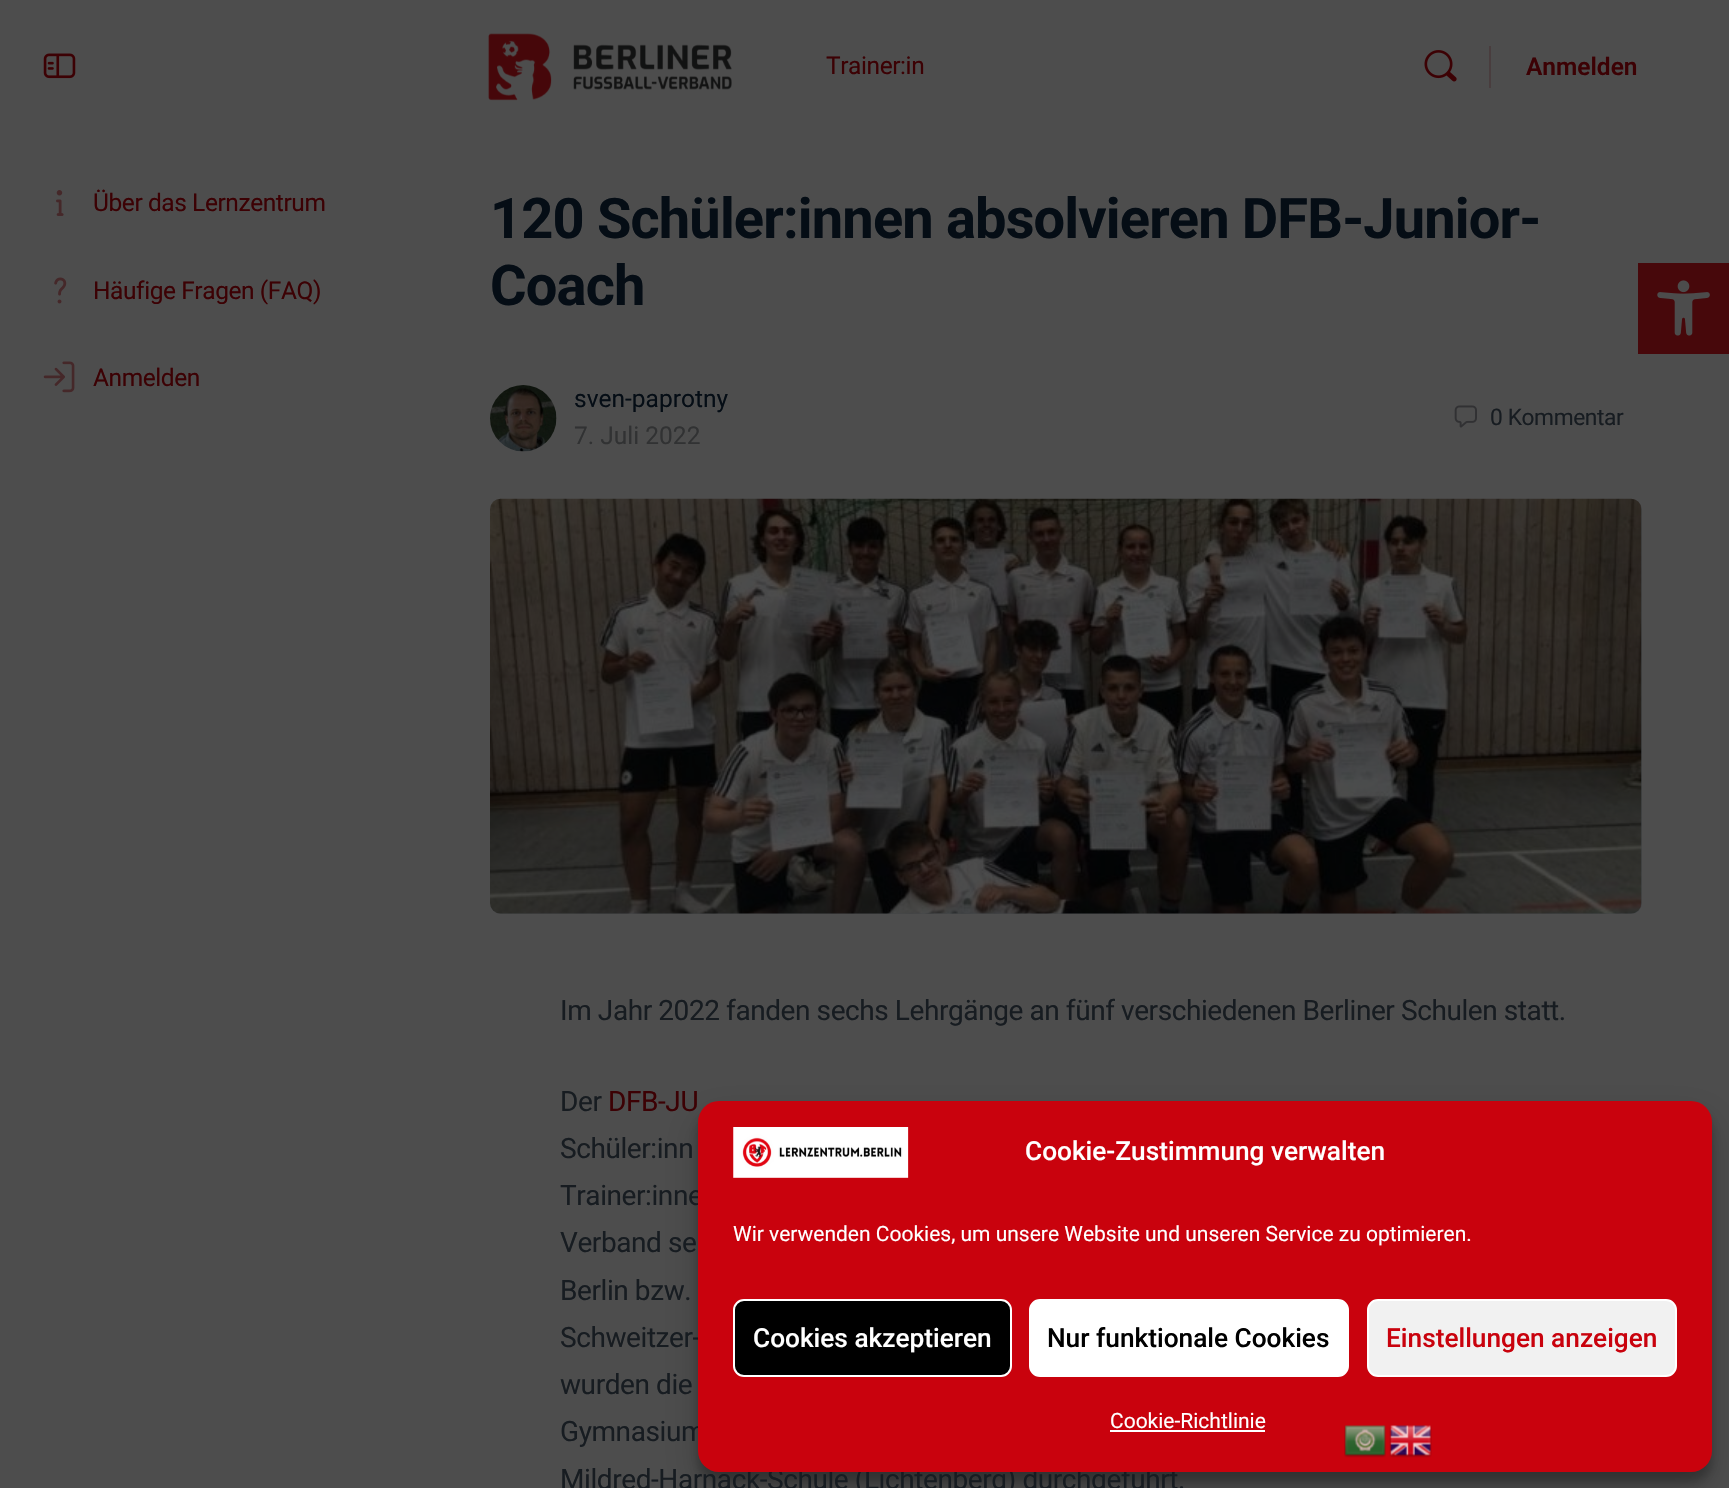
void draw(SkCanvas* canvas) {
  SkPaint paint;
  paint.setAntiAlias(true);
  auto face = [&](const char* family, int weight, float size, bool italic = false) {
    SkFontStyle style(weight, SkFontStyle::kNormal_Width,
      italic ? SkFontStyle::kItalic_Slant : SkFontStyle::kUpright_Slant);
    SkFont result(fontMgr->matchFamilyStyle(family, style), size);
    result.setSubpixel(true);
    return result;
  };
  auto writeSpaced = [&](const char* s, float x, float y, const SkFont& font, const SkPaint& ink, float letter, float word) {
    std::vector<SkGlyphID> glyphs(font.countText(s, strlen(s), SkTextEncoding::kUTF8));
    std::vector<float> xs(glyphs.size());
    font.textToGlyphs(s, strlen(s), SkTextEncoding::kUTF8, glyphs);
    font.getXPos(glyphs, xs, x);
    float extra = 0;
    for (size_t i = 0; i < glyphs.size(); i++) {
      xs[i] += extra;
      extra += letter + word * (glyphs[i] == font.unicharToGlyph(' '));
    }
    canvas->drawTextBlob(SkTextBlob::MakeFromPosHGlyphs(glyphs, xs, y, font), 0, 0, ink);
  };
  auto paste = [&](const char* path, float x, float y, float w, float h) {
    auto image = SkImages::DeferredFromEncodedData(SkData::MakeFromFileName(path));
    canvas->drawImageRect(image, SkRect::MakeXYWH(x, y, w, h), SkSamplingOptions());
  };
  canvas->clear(0xff4d4d4d);
  paste("img/1.png", 43, 53, 33, 26);
  paste("img/2.png", 56, 190, 8, 26);
  paste("img/3.png", 54, 277, 13, 27);
  paste("img/4.png", 43, 361, 32, 32);
  paste("img/5.png", 488, 33, 244, 68);
  paste("img/6.png", 1424, 50, 33, 32);
  paint.setColor(0xff493d3e);
  canvas->drawRect(SkRect::MakeXYWH(1489, 46, 2, 42), paint);
  paste("img/7.png", 490, 385, 67, 67);
  paste("img/8.png", 1454, 405, 23, 23);
  paint.setColor(0xff444648);
  canvas->drawRoundRect(SkRect::MakeXYWH(490, 499, 1152, 415), 11, 11, paint);
  paste("img/9.png", 490, 498, 1152, 416);
  paint.setColor(0xff47080b);
  canvas->drawRect(SkRect::MakeXYWH(1638, 263, 91, 91), paint);
  paste("img/10.png", 1657, 280, 53, 56);
  paint.setColor(0x3b000000);
  paint.setMaskFilter(SkMaskFilter::MakeBlur(kNormal_SkBlurStyle, 5));
  canvas->drawRoundRect(SkRect::MakeXYWH(698, 1111, 1014, 371), 21, 21, paint);
  paint.setMaskFilter(nullptr);
  paint.setColor(0x30000000);
  paint.setMaskFilter(SkMaskFilter::MakeBlur(kNormal_SkBlurStyle, 17.5f));
  canvas->drawRoundRect(SkRect::MakeXYWH(698, 1118, 1014, 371), 21, 21, paint);
  paint.setMaskFilter(nullptr);
  auto f0 = face("Roboto", 400, 24.5f);
  paint.setColor(0xff3c0104);
  {
    const struct { const char* s; float x, y; } items[] = {
      {"Über das Lernzentrum", 93, 211},
      {"Häufige Fragen (FAQ)", 93, 299},
      {"Anmelden", 93, 386},
      {"Trainer:in", 826, 74},
    };
    for (auto [s, x, y] : items) {
      writeSpaced(s, x, y, f0, paint, -0.42f, 0);
    }
  }
  auto f1 = face("Roboto", 600, 24.5f);
  canvas->drawString("Anmelden", 1526, 75, f1, paint);
  auto f2 = face("Roboto", 700, 56);
  paint.setColor(0xff050d15);
  writeSpaced("120 Schüler:innen absolvieren DFB-Junior-", 490, 238, f2, paint, -0.85f, 0);
  writeSpaced("Coach", 490, 305, f2, paint, -0.85f, 0);
  canvas->drawString("sven-paprotny", 574, 407, f0, paint);
  paint.setColor(0xff313233);
  canvas->drawString("7. Juli 2022", 574, 444, f0, paint);
  auto f3 = face("Roboto", 400, 22.75f);
  paint.setColor(0xff171c21);
  writeSpaced("0 Kommentar", 1490, 425, f3, paint, -0.4f, 0);
  auto f4 = face("Roboto", 400, 28);
  writeSpaced("Im Jahr 2022 fanden sechs Lehrgänge an fünf verschiedenen Berliner Schulen statt.", 560, 1020, f4, paint, -0.42f, 0);
  writeSpaced("Der", 560, 1111, f4, paint, -0.42f, 0);
  paint.setColor(0xff3c0104);
  writeSpaced("DFB-JU", 608, 1111, f4, paint, -0.42f, 0);
  paint.setColor(0xff171c21);
  {
    const struct { const char* s; float x, y; } items[] = {
      {"Schüler:inn", 560, 1158},
      {"Trainer:inne", 560, 1205},
      {"Verband se", 560, 1252},
      {"Berlin bzw.", 560, 1300},
      {"Schweitzer-", 560, 1347},
      {"wurden die", 560, 1394},
      {"Gymnasium", 560, 1441},
      {"Mildred-Harnack-Schule (Lichtenberg) durchgeführt.", 560, 1489},
    };
    for (auto [s, x, y] : items) {
      writeSpaced(s, x, y, f4, paint, -0.42f, 0);
    }
  }
  paint.setColor(0xffc9020d);
  canvas->drawRoundRect(SkRect::MakeXYWH(698, 1101, 1014, 371), 21, 21, paint);
  paste("img/11.png", 733, 1127, 176, 51);
  auto f5 = face("Roboto", 500, 26.25f);
  paint.setColor(0xffffffff);
  canvas->drawString("Cookie-Zustimmung verwalten", 1025, 1160, f5, paint);
  auto f6 = face("Roboto", 400, 21);
  canvas->drawString("Wir verwenden Cookies, um unsere Website und unseren Service zu optimieren.", 733, 1241, f6, paint);
  paint.setColor(0xff000000);
  canvas->drawRoundRect(SkRect::MakeXYWH(734, 1300, 277, 76), 10, 10, paint);
  paint.setStroke(true);
  paint.setStrokeWidth(2);
  paint.setColor(0xffffffff);
  canvas->drawRoundRect(SkRect::MakeXYWH(734, 1300, 277, 76), 10, 10, paint);
  paint.setStroke(false);
  canvas->drawString("Cookies akzeptieren", 753, 1347, f5, paint);
  canvas->drawRoundRect(SkRect::MakeXYWH(1030, 1300, 318, 76), 10, 10, paint);
  paint.setStroke(true);
  canvas->drawRoundRect(SkRect::MakeXYWH(1030, 1300, 318, 76), 10, 10, paint);
  paint.setStroke(false);
  paint.setColor(0xff000000);
  canvas->drawString("Nur funktionale Cookies", 1047, 1347, f5, paint);
  paint.setColor(0xfff1f1f1);
  canvas->drawRoundRect(SkRect::MakeXYWH(1368, 1300, 308, 76), 10, 10, paint);
  paint.setStroke(true);
  paint.setColor(0xffffffff);
  canvas->drawRoundRect(SkRect::MakeXYWH(1368, 1300, 308, 76), 10, 10, paint);
  paint.setStroke(false);
  paint.setColor(0xffc9020d);
  canvas->drawString("Einstellungen anzeigen", 1386, 1347, f5, paint);
  paint.setColor(0xffffffff);
  canvas->drawString("Cookie-Richtlinie", 1110, 1428, f6, paint);
  canvas->drawRect(SkRect::MakeXYWH(1110, 1430, 155, 2), paint);
  paste("img/12.png", 1344, 1425, 42, 33);
  paste("img/13.png", 1389, 1425, 43, 33);
}
